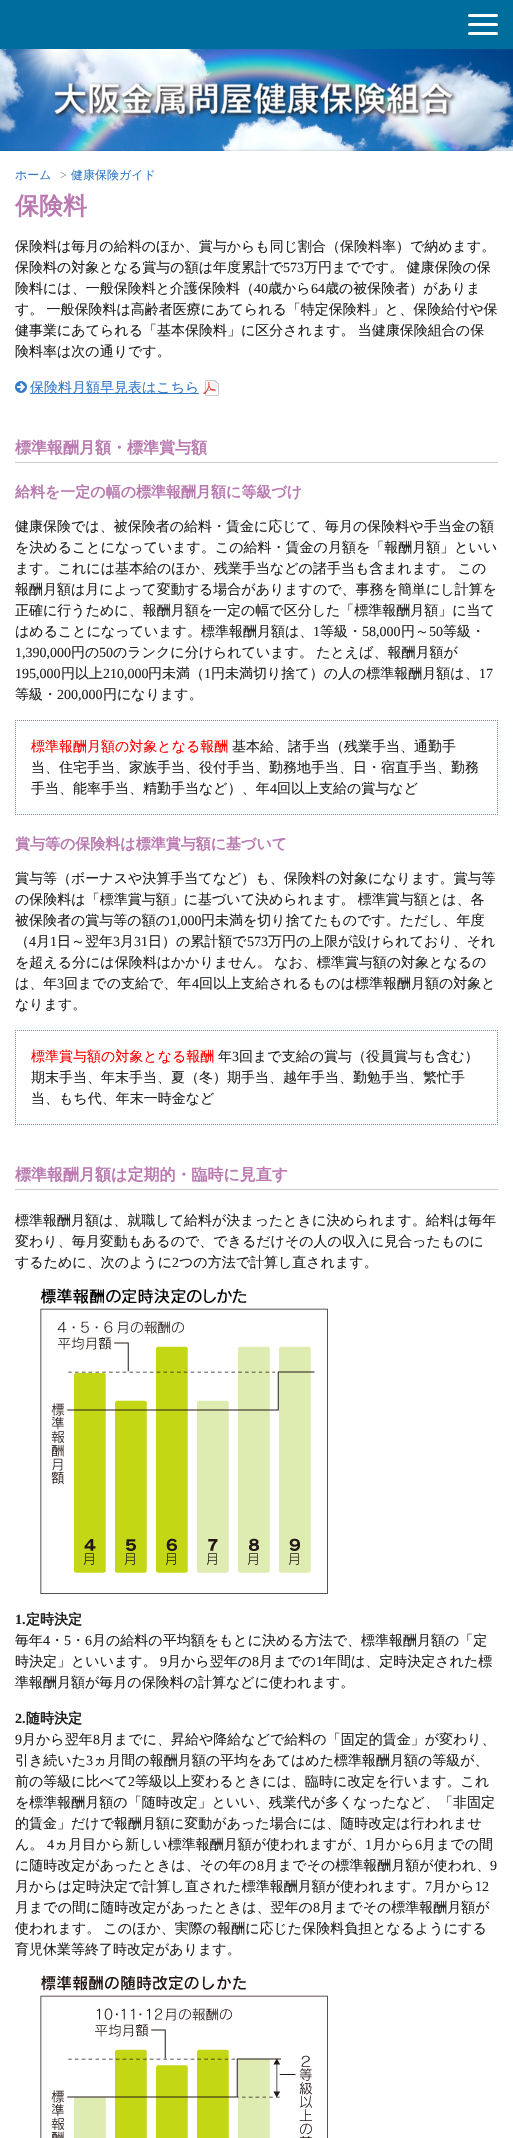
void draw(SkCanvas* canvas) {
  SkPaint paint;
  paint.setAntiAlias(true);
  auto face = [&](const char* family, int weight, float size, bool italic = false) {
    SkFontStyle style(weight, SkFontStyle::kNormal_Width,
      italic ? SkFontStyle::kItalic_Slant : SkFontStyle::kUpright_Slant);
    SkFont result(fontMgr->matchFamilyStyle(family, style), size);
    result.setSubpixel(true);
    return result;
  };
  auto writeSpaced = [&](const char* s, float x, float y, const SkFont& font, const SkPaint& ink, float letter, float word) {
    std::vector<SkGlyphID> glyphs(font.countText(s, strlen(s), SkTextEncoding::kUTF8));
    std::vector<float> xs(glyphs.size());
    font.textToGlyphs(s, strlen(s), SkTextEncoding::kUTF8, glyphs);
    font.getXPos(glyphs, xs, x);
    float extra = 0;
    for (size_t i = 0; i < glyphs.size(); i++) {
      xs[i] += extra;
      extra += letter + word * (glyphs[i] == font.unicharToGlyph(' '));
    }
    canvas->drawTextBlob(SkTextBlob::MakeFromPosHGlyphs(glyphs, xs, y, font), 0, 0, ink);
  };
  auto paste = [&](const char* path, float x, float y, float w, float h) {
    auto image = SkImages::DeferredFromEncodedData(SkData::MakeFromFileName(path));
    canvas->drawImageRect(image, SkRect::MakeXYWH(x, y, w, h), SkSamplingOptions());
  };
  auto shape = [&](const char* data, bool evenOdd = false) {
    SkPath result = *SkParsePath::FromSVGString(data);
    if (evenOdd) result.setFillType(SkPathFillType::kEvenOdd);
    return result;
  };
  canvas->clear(0xffffffff);
  paste("img/1.png", 0, 49, 513, 102);
  paint.setColor(0xff006e9c);
  canvas->drawRect(SkRect::MakeXYWH(0, 0, 513, 49), paint);
  paint.setColor(0xffffffff);
  canvas->drawRoundRect(SkRect::MakeXYWH(468, 14, 30, 3), 1.5f, 1.5f, paint);
  canvas->drawRoundRect(SkRect::MakeXYWH(468, 23, 30, 3), 1.5f, 1.5f, paint);
  canvas->drawRoundRect(SkRect::MakeXYWH(468, 32, 30, 3), 1.5f, 1.5f, paint);
  paste("img/2.png", 53, 81, 404, 38);
  canvas->save();
  canvas->clipRect(SkRect::MakeXYWH(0, 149, 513, 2));
  paint.setColor(0x80000000);
  paint.setMaskFilter(SkMaskFilter::MakeBlur(kNormal_SkBlurStyle, 1.5f));
  canvas->drawRect(SkRect::MakeXYWH(0, 152, 513, 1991), paint);
  paint.setMaskFilter(nullptr);
  canvas->restore();
  paste("img/3.png", 15, 381, 12, 12);
  paint.setColor(0xff347bc7);
  canvas->drawRect(SkRect::MakeXYWH(30, 393, 169, 1), paint);
  paste("img/4.png", 203, 380, 16, 16);
  paint.setColor(0xffcccccc);
  canvas->drawRect(SkRect::MakeXYWH(15, 462, 483, 1), paint);
  paint.setStroke(true);
  paint.setStrokeWidth(1);
  paint.setColor(0xffe95484);
  paint.setPathEffect(SkDashPathEffect::Make({{1, 1}}, 0));
  canvas->drawPath(shape("M15 720.5H498"), paint);
  paint.setPathEffect(nullptr);
  paint.setPathEffect(SkDashPathEffect::Make({{1, 1}}, 0));
  canvas->drawPath(shape("M497.5 720V815"), paint);
  paint.setPathEffect(nullptr);
  paint.setPathEffect(SkDashPathEffect::Make({{1, 1}}, 0));
  canvas->drawPath(shape("M15 814.5H498"), paint);
  paint.setPathEffect(nullptr);
  paint.setPathEffect(SkDashPathEffect::Make({{1, 1}}, 0));
  canvas->drawPath(shape("M15.5 720V815"), paint);
  paint.setPathEffect(nullptr);
  paint.setPathEffect(SkDashPathEffect::Make({{1, 1}}, 0));
  canvas->drawPath(shape("M15 1030.5H498"), paint);
  paint.setPathEffect(nullptr);
  paint.setPathEffect(SkDashPathEffect::Make({{1, 1}}, 0));
  canvas->drawPath(shape("M497.5 1030V1125"), paint);
  paint.setPathEffect(nullptr);
  paint.setPathEffect(SkDashPathEffect::Make({{1, 1}}, 0));
  canvas->drawPath(shape("M15 1124.5H498"), paint);
  paint.setPathEffect(nullptr);
  paint.setPathEffect(SkDashPathEffect::Make({{1, 1}}, 0));
  canvas->drawPath(shape("M15.5 1030V1125"), paint);
  paint.setPathEffect(nullptr);
  paint.setStroke(false);
  paint.setColor(0xffcccccc);
  canvas->drawRect(SkRect::MakeXYWH(15, 1189, 483, 1), paint);
  paste("img/5.png", 40, 1288, 288, 306);
  paste("img/6.png", 40, 1975, 288, 163);
  auto f0 = face("WenQuanYi Zen Hei", 500, 12);
  paint.setColor(0xff347bc7);
  canvas->drawString("ホーム", 15, 179, f0, paint);
  auto f1 = face("Liberation Serif", 400, 12);
  paint.setColor(0xff999999);
  canvas->drawString(">", 60, 179, f1, paint);
  paint.setColor(0xff347bc7);
  canvas->drawString("健康保険ガイド", 71, 179, f0, paint);
  auto f2 = face("WenQuanYi Zen Hei", 700, 24);
  paint.setColor(0xffba7ab1);
  canvas->drawString("保険料", 15, 214, f2, paint);
  auto f3 = face("WenQuanYi Zen Hei", 500, 14);
  paint.setColor(0xff222222);
  canvas->drawString("保険料は毎月の給料のほか、賞与からも同じ割合（保険料率）で納めます。", 15, 251, f3, paint);
  canvas->drawString("保険料の対象となる賞与の額は年度累計で", 15, 272, f3, paint);
  auto f4 = face("Liberation Serif", 400, 14);
  canvas->drawString("573", 283, 272, f4, paint);
  writeSpaced("万円までです。 健康保険の保", 304, 272, f3, paint, 0, -1);
  canvas->drawString("険料には、一般保険料と介護保険料（", 15, 293, f3, paint);
  canvas->drawString("40", 254, 293, f4, paint);
  canvas->drawString("歳から", 268, 293, f3, paint);
  canvas->drawString("64", 311, 293, f4, paint);
  canvas->drawString("歳の被保険者）がありま", 325, 293, f3, paint);
  writeSpaced("す。 一般保険料は高齢者医療にあてられる「特定保険料」と、保険給付や保", 15, 314, f3, paint, 0, -1);
  writeSpaced("健事業にあてられる「基本保険料」に区分されます。 当健康保険組合の保", 15, 335, f3, paint, 0, -1);
  canvas->drawString("険料率は次の通りです。", 15, 356, f3, paint);
  paint.setColor(0xff347bc7);
  canvas->drawString("保険料月額早見表はこちら", 30, 392, f3, paint);
  auto f5 = face("WenQuanYi Zen Hei", 700, 16);
  paint.setColor(0xffba7ab1);
  canvas->drawString("標準報酬月額・標準賞与額", 15, 453, f5, paint);
  auto f6 = face("WenQuanYi Zen Hei", 700, 15);
  canvas->drawString("給料を一定の幅の標準報酬月額に等級づけ", 15, 497, f6, paint);
  paint.setColor(0xff222222);
  canvas->drawString("健康保険では、被保険者の給料・賃金に応じて、毎月の保険料や手当金の額", 15, 531, f3, paint);
  canvas->drawString("を決めることになっています。この給料・賃金の月額を「報酬月額」といい", 15, 552, f3, paint);
  writeSpaced("ます。これには基本給のほか、残業手当などの諸手当も含まれます。 この", 15, 573, f3, paint, 0, -1);
  {
    const struct { const char* s; float x, y; } items[] = {
      {"報酬月額は月によって変動する場合がありますので、事務を簡単にし計算を", 15, 594},
      {"正確に行うために、報酬月額を一定の幅で区分した「標準報酬月額」に当て", 15, 615},
      {"はめることになっています。標準報酬月額は、", 15, 636},
    };
    for (auto [s, x, y] : items) {
      canvas->drawString(s, x, y, f3, paint);
    }
  }
  canvas->drawString("1", 313, 636, f4, paint);
  canvas->drawString("等級・", 320, 636, f3, paint);
  canvas->drawString("58,000", 362, 636, f4, paint);
  canvas->drawString("円～", 401, 636, f3, paint);
  canvas->drawString("50", 429, 636, f4, paint);
  canvas->drawString("等級・", 443, 636, f3, paint);
  canvas->drawString("1,390,000", 15, 657, f4, paint);
  canvas->drawString("円の", 71, 657, f3, paint);
  canvas->drawString("50", 99, 657, f4, paint);
  writeSpaced("のランクに分けられています。 たとえば、報酬月額が", 113, 657, f3, paint, 0, -1);
  canvas->drawString("195,000", 15, 678, f4, paint);
  canvas->drawString("円以上", 61, 678, f3, paint);
  canvas->drawString("210,000", 103, 678, f4, paint);
  canvas->drawString("円未満（", 148, 678, f3, paint);
  canvas->drawString("1", 204, 678, f4, paint);
  canvas->drawString("円未満切り捨て）の人の標準報酬月額は、", 211, 678, f3, paint);
  canvas->drawString("17", 479, 678, f4, paint);
  canvas->drawString("等級・", 15, 699, f3, paint);
  canvas->drawString("200,000", 57, 699, f4, paint);
  canvas->drawString("円になります。", 103, 699, f3, paint);
  paint.setColor(0xffff0000);
  canvas->drawString("標準報酬月額の対象となる報酬", 31, 751, f3, paint);
  paint.setColor(0xff222222);
  {
    const struct { const char* s; float x, y; } items[] = {
      {"基本給、諸手当（残業手当、通勤手", 232, 751},
      {"当、住宅手当、家族手当、役付手当、勤務地手当、日・宿直手当、勤務", 31, 772},
      {"手当、能率手当、精勤手当など）、年", 31, 793},
    };
    for (auto [s, x, y] : items) {
      canvas->drawString(s, x, y, f3, paint);
    }
  }
  canvas->drawString("4", 270, 793, f4, paint);
  canvas->drawString("回以上支給の賞与など", 277, 793, f3, paint);
  paint.setColor(0xffba7ab1);
  canvas->drawString("賞与等の保険料は標準賞与額に基づいて", 15, 849, f6, paint);
  paint.setColor(0xff222222);
  canvas->drawString("賞与等（ボーナスや決算手当てなど）も、保険料の対象になります。賞与等", 15, 883, f3, paint);
  writeSpaced("の保険料は「標準賞与額」に基づいて決められます。 標準賞与額とは、各", 15, 904, f3, paint, 0, -1);
  canvas->drawString("被保険者の賞与等の額の", 15, 925, f3, paint);
  canvas->drawString("1,000", 170, 925, f4, paint);
  canvas->drawString("円未満を切り捨てたものです。ただし、年度", 201, 925, f3, paint);
  canvas->drawString("（", 15, 946, f3, paint);
  canvas->drawString("4", 29, 946, f4, paint);
  canvas->drawString("月", 36, 946, f3, paint);
  canvas->drawString("1", 50, 946, f4, paint);
  canvas->drawString("日～翌年", 57, 946, f3, paint);
  canvas->drawString("3", 113, 946, f4, paint);
  canvas->drawString("月", 120, 946, f3, paint);
  canvas->drawString("31", 134, 946, f4, paint);
  canvas->drawString("日）の累計額で", 148, 946, f3, paint);
  canvas->drawString("573", 247, 946, f4, paint);
  canvas->drawString("万円の上限が設けられており、それ", 268, 946, f3, paint);
  writeSpaced("を超える分には保険料はかかりません。 なお、標準賞与額の対象となるの", 15, 967, f3, paint, 0, -1);
  canvas->drawString("は、年", 15, 988, f3, paint);
  canvas->drawString("3", 57, 988, f4, paint);
  canvas->drawString("回までの支給で、年", 64, 988, f3, paint);
  canvas->drawString("4", 192, 988, f4, paint);
  canvas->drawString("回以上支給されるものは標準報酬月額の対象と", 199, 988, f3, paint);
  canvas->drawString("なります。", 15, 1009, f3, paint);
  paint.setColor(0xffff0000);
  canvas->drawString("標準賞与額の対象となる報酬", 31, 1061, f3, paint);
  paint.setColor(0xff222222);
  canvas->drawString("年", 218, 1061, f3, paint);
  canvas->drawString("3", 232, 1061, f4, paint);
  {
    const struct { const char* s; float x, y; } items[] = {
      {"回まで支給の賞与（役員賞与も含む）", 239, 1061},
      {"期末手当、年末手当、夏（冬）期手当、越年手当、勤勉手当、繁忙手", 31, 1082},
      {"当、もち代、年末一時金など", 31, 1103},
    };
    for (auto [s, x, y] : items) {
      canvas->drawString(s, x, y, f3, paint);
    }
  }
  paint.setColor(0xffba7ab1);
  canvas->drawString("標準報酬月額は定期的・臨時に見直す", 15, 1180, f5, paint);
  paint.setColor(0xff222222);
  {
    const struct { const char* s; float x, y; } items[] = {
      {"標準報酬月額は、就職して給料が決まったときに決められます。給料は毎年", 15, 1225},
      {"変わり、毎月変動もあるので、できるだけその人の収入に見合ったものに", 15, 1246},
      {"するために、次のように", 15, 1267},
    };
    for (auto [s, x, y] : items) {
      canvas->drawString(s, x, y, f3, paint);
    }
  }
  canvas->drawString("2", 172, 1267, f4, paint);
  canvas->drawString("つの方法で計算し直されます。", 179, 1267, f3, paint);
  auto f7 = face("Liberation Serif", 700, 14);
  canvas->drawString("1.", 15, 1624, f7, paint);
  auto f8 = face("WenQuanYi Zen Hei", 700, 14);
  canvas->drawString("定時決定", 26, 1624, f8, paint);
  canvas->drawString("毎年", 15, 1645, f3, paint);
  canvas->drawString("4", 43, 1645, f4, paint);
  canvas->drawString("・", 50, 1645, f3, paint);
  canvas->drawString("5", 64, 1645, f4, paint);
  canvas->drawString("・", 71, 1645, f3, paint);
  canvas->drawString("6", 85, 1645, f4, paint);
  canvas->drawString("月の給料の平均額をもとに決める方法で、標準報酬月額の「定", 92, 1645, f3, paint);
  canvas->drawString("時決定」といいます。", 15, 1666, f3, paint);
  canvas->drawString("9", 160, 1666, f4, paint);
  canvas->drawString("月から翌年の", 167, 1666, f3, paint);
  canvas->drawString("8", 252, 1666, f4, paint);
  canvas->drawString("月までの", 259, 1666, f3, paint);
  canvas->drawString("1", 316, 1666, f4, paint);
  canvas->drawString("年間は、定時決定された標", 323, 1666, f3, paint);
  canvas->drawString("準報酬月額が毎月の保険料の計算などに使われます。", 15, 1687, f3, paint);
  canvas->drawString("2.", 15, 1723, f7, paint);
  canvas->drawString("随時決定", 26, 1723, f8, paint);
  canvas->drawString("9", 15, 1744, f4, paint);
  canvas->drawString("月から翌年", 22, 1744, f3, paint);
  canvas->drawString("8", 93, 1744, f4, paint);
  canvas->drawString("月までに、昇給や降給などで給料の「固定的賃金」が変わり、", 100, 1744, f3, paint);
  canvas->drawString("引き続いた", 15, 1765, f3, paint);
  canvas->drawString("3", 86, 1765, f4, paint);
  canvas->drawString("ヵ月間の報酬月額の平均をあてはめた標準報酬月額の等級が、", 93, 1765, f3, paint);
  canvas->drawString("前の等級に比べて", 15, 1786, f3, paint);
  canvas->drawString("2", 128, 1786, f4, paint);
  {
    const struct { const char* s; float x, y; } items[] = {
      {"等級以上変わるときには、臨時に改定を行います。これ", 135, 1786},
      {"を標準報酬月額の「随時改定」といい、残業代が多くなったなど、「非固定", 15, 1807},
      {"的賃金」だけで報酬月額に変動があった場合には、随時改定は行われませ", 15, 1828},
      {"ん。", 15, 1849},
    };
    for (auto [s, x, y] : items) {
      canvas->drawString(s, x, y, f3, paint);
    }
  }
  canvas->drawString("4", 47, 1849, f4, paint);
  canvas->drawString("ヵ月目から新しい標準報酬月額が使われますが、", 54, 1849, f3, paint);
  canvas->drawString("1", 365, 1849, f4, paint);
  canvas->drawString("月から", 372, 1849, f3, paint);
  canvas->drawString("6", 415, 1849, f4, paint);
  canvas->drawString("月までの間", 422, 1849, f3, paint);
  canvas->drawString("に随時改定があったときは、その年の", 15, 1870, f3, paint);
  canvas->drawString("8", 257, 1870, f4, paint);
  canvas->drawString("月までその標準報酬月額が使われ、", 264, 1870, f3, paint);
  canvas->drawString("9", 490, 1870, f4, paint);
  canvas->drawString("月からは定時決定で計算し直された標準報酬月額が使われます。", 15, 1891, f3, paint);
  canvas->drawString("7", 425, 1891, f4, paint);
  canvas->drawString("月から", 432, 1891, f3, paint);
  canvas->drawString("12", 475, 1891, f4, paint);
  canvas->drawString("月までの間に随時改定があったときは、翌年の", 15, 1912, f3, paint);
  canvas->drawString("8", 313, 1912, f4, paint);
  canvas->drawString("月までその標準報酬月額が", 320, 1912, f3, paint);
  writeSpaced("使われます。 このほか、実際の報酬に応じた保険料負担となるようにする", 15, 1933, f3, paint, 0, -1);
  canvas->drawString("育児休業等終了時改定があります。", 15, 1954, f3, paint);
}
